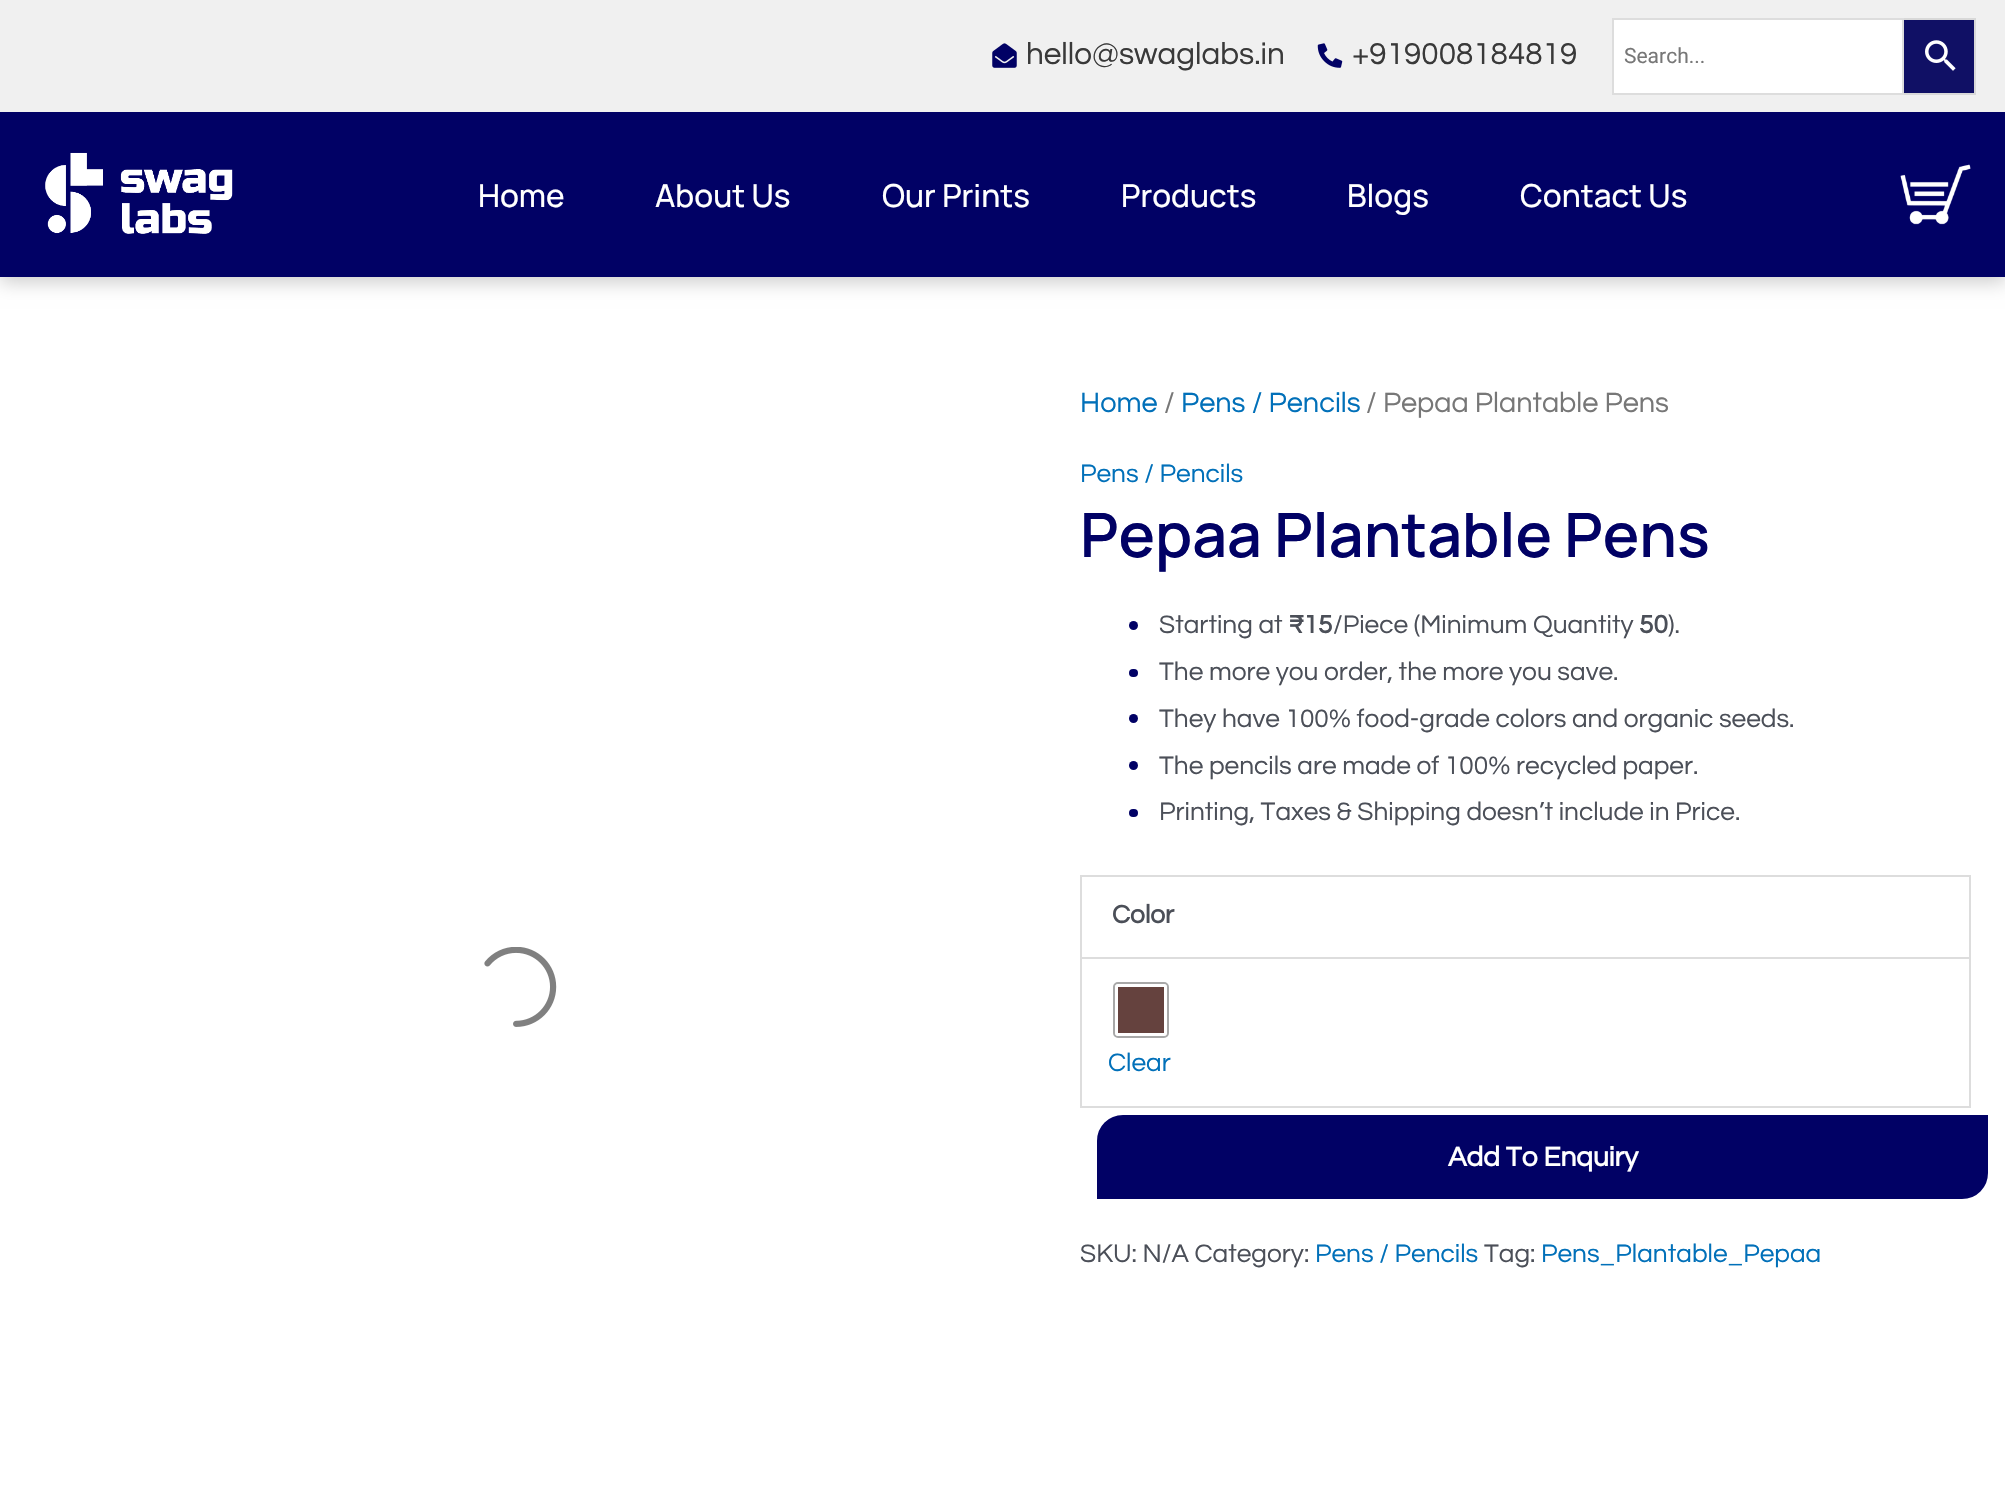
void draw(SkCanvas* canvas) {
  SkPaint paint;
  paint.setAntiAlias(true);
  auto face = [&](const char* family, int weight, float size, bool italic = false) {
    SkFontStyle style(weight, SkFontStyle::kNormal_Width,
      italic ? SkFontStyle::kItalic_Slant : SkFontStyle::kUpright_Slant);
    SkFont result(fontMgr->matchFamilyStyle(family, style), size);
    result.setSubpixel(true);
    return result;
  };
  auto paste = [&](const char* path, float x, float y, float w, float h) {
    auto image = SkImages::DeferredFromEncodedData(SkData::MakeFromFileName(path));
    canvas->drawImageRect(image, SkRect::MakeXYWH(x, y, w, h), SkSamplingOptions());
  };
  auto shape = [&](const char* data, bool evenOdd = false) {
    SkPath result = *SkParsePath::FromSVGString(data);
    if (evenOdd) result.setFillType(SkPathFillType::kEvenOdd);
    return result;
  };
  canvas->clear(0xffffffff);
  paint.setColor(0x33000000);
  paint.setMaskFilter(SkMaskFilter::MakeBlur(kNormal_SkBlurStyle, 9));
  canvas->drawRect(SkRect::MakeXYWH(0, 5, 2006, 277), paint);
  paint.setMaskFilter(nullptr);
  paint.setColor(0xfff0f0f0);
  canvas->drawRect(SkRect::MakeXYWH(0, 0, 2005, 112), paint);
  paste("img/1.png", 992, 43, 25, 25);
  paste("img/2.png", 1317, 43, 26, 25);
  paint.setColor(0xff101065);
  canvas->drawRect(SkRect::MakeXYWH(1903, 19, 72, 75), paint);
  paint.setStroke(true);
  paint.setStrokeWidth(2);
  paint.setColor(0xffd8d8d8);
  canvas->drawRect(SkRect::MakeXYWH(1903, 19, 72, 75), paint);
  paint.setStroke(false);
  paint.setColor(0xffffffff);
  canvas->drawRect(SkRect::MakeXYWH(1613, 19, 290, 75), paint);
  paint.setStroke(true);
  paint.setColor(0xffdddddd);
  canvas->drawRect(SkRect::MakeXYWH(1613, 19, 290, 75), paint);
  paste("img/3.png", 1925, 40, 31, 31);
  paint.setStroke(false);
  paint.setColor(0xff010165);
  canvas->drawRect(SkRect::MakeXYWH(0, 112, 2005, 165), paint);
  paste("img/4.png", 45, 152, 188, 82);
  paste("img/5.png", 1900, 164, 71, 61);
  paste("img/6.png", 484, 947, 73, 80);
  canvas->drawCircle(1133.5f, 625.5f, 4.5f, paint);
  canvas->drawRoundRect(SkRect::MakeXYWH(1129, 669, 9, 8), 4, 4, paint);
  canvas->drawCircle(1133.5f, 718.5f, 4.5f, paint);
  canvas->drawCircle(1133.5f, 765.5f, 4.5f, paint);
  canvas->drawRoundRect(SkRect::MakeXYWH(1129, 809, 9, 8), 4, 4, paint);
  {
    const struct { float x, y, w, h; SkColor color; } items[] = {
      {1080, 875, 891, 2, 0xffdddddd},
      {1080, 875, 2, 233, 0xffdddddd},
      {1969, 877, 2, 231, 0xffdddddd},
      {1082, 957, 889, 2, 0xffdddddd},
      {1082, 1106, 889, 2, 0xffdddddd},
    };
    for (auto [x, y, w, h, color] : items) {
      paint.setColor(color);
      canvas->drawRect(SkRect::MakeXYWH(x, y, w, h), paint);
    }
  }
  paint.setStroke(true);
  paint.setColor(0xffa8a8a8);
  canvas->drawRoundRect(SkRect::MakeXYWH(1114, 983, 54, 54), 4, 4, paint);
  paint.setStroke(false);
  paint.setColor(0xffffffff);
  canvas->drawRoundRect(SkRect::MakeXYWH(1115, 984, 52, 52), 4, 4, paint);
  paint.setColor(0xff65423e);
  canvas->drawRect(SkRect::MakeXYWH(1118, 987, 46, 46), paint);
  paint.setColor(0xff010165);
  canvas->drawPath(shape("M1123 1116H1987V1173C1987 1187 1976 1198 1962 1198H1098V1141C1098 1127 1109 1116 1123 1116Z"), paint);
  paint.setStroke(true);
  canvas->drawPath(shape("M1123 1116H1987V1173C1987 1187 1976 1198 1962 1198H1098V1141C1098 1127 1109 1116 1123 1116Z"), paint);
  auto f0 = face("Questrial", 400, 31.5f);
  paint.setStroke(false);
  paint.setColor(0xff393939);
  canvas->drawString("hello@swaglabs.in", 1026, 64, f0, paint);
  canvas->drawString("+919008184819", 1352, 64, f0, paint);
  auto f1 = face("Roboto", 400, 21);
  paint.setColor(0xff777777);
  canvas->drawString("Search...", 1624, 63, f1, paint);
  auto f2 = face("Manrope", 500, 31.5f);
  paint.setColor(0xffffffff);
  {
    const struct { const char* s; float x, y; } items[] = {
      {"Home", 478, 207},
      {"About Us", 655, 207},
      {"Our Prints", 882, 207},
      {"Products", 1121, 207},
      {"Blogs", 1347, 207},
      {"Contact Us", 1520, 207},
    };
    for (auto [s, x, y] : items) {
      canvas->drawString(s, x, y, f2, paint);
    }
  }
  auto f3 = face("Questrial", 400, 28.9f);
  paint.setColor(0xff0170b9);
  canvas->drawString("Home", 1080, 412, f3, paint);
  paint.setColor(0xff777777);
  canvas->drawString("/", 1164, 412, f3, paint);
  paint.setColor(0xff0170b9);
  canvas->drawString("Pens / Pencils", 1181, 412, f3, paint);
  paint.setColor(0xff777777);
  canvas->drawString("/ Pepaa Plantable Pens", 1366, 412, f3, paint);
  auto f4 = face("Questrial", 400, 26.25f);
  paint.setColor(0xff0170b9);
  canvas->drawString("Pens / Pencils", 1080, 482, f4, paint);
  auto f5 = face("Manrope", 600, 61.25f);
  paint.setColor(0xff010165);
  canvas->drawString("Pepaa Plantable Pens", 1080, 557, f5, paint);
  paint.setColor(0xff4b4f58);
  canvas->drawString("Starting at", 1159, 633, f4, paint);
  auto f6 = face("Questrial", 700, 26.25f);
  canvas->drawString("₹15", 1288, 633, f6, paint);
  canvas->drawString("/Piece (Minimum Quantity", 1333, 633, f4, paint);
  canvas->drawString("50", 1639, 633, f6, paint);
  {
    const struct { const char* s; float x, y; } items[] = {
      {").", 1668, 633},
      {"The more you order, the more you save.", 1159, 680},
      {"They have 100% food-grade colors and organic seeds.", 1159, 727},
      {"The pencils are made of 100% recycled paper.", 1159, 774},
      {"Printing, Taxes & Shipping doesn’t include in Price.", 1159, 820},
    };
    for (auto [s, x, y] : items) {
      canvas->drawString(s, x, y, f4, paint);
    }
  }
  canvas->drawString("Color", 1112, 923, f6, paint);
  paint.setColor(0xff0170b9);
  canvas->drawString("Clear", 1108, 1071, f4, paint);
  auto f7 = face("Questrial", 700, 28);
  paint.setColor(0xffffffff);
  canvas->drawString("Add To Enquiry", 1448, 1166, f7, paint);
  paint.setColor(0xff4b4f58);
  canvas->drawString("SKU: N/A Category:", 1080, 1262, f4, paint);
  paint.setColor(0xff0170b9);
  canvas->drawString("Pens / Pencils", 1315, 1262, f4, paint);
  paint.setColor(0xff4b4f58);
  canvas->drawString("Tag:", 1484, 1262, f4, paint);
  paint.setColor(0xff0170b9);
  canvas->drawString("Pens_Plantable_Pepaa", 1541, 1262, f4, paint);
}
